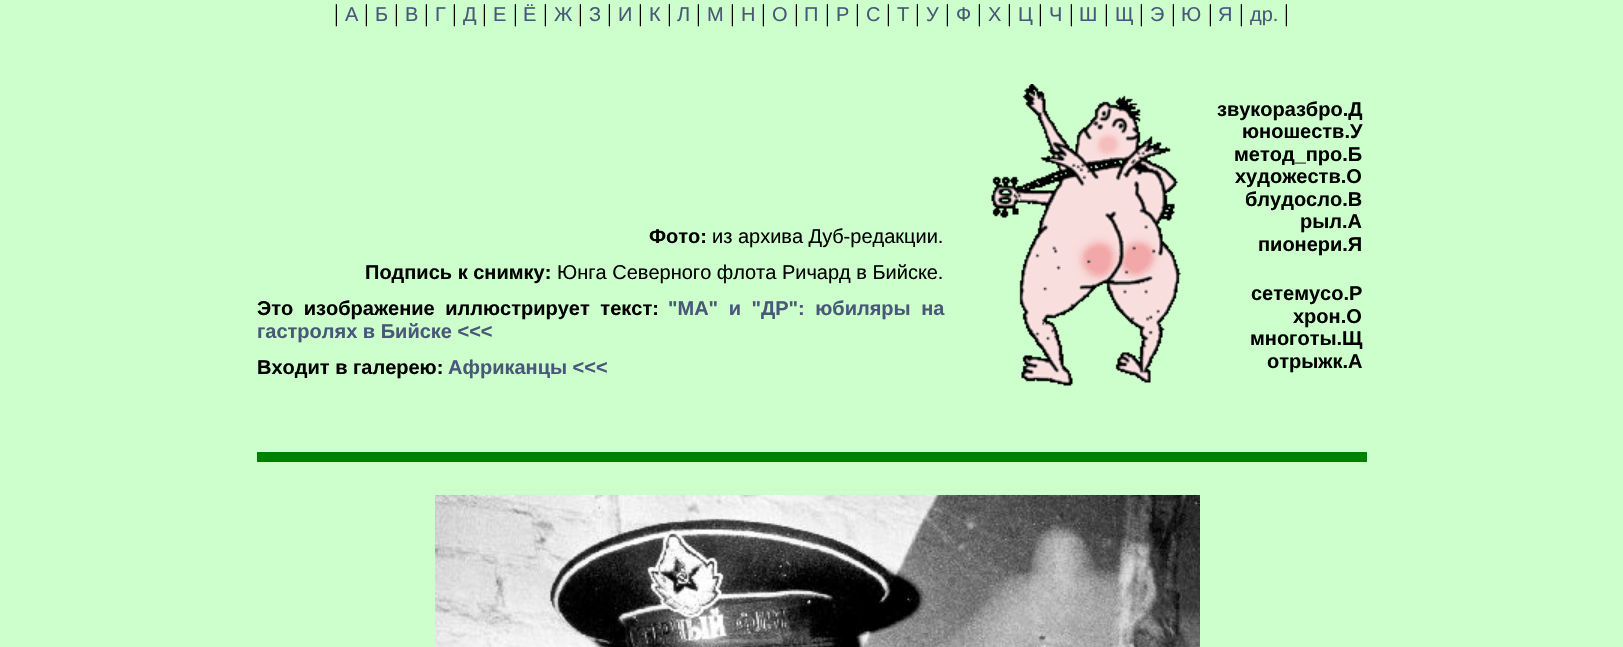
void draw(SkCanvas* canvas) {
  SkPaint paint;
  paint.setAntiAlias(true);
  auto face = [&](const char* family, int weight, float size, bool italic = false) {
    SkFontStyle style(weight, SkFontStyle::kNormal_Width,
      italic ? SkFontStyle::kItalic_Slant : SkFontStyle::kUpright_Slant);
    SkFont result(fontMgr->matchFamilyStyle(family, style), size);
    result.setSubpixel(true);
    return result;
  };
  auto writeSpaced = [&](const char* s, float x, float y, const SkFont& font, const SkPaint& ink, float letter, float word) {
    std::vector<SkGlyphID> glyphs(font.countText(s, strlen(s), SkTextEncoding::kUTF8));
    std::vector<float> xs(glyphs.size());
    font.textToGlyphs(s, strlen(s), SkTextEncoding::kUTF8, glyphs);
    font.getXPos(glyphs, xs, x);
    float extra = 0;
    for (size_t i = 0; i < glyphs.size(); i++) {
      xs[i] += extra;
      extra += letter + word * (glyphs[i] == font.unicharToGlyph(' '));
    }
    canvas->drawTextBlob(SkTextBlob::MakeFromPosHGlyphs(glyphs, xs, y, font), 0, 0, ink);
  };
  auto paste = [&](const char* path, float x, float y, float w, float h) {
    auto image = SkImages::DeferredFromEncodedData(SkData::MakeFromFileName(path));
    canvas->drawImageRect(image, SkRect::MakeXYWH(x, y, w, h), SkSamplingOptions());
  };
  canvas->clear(0xffccffcc);
  paste("img/1.png", 991, 84, 190, 302);
  paint.setColor(0xff008000);
  canvas->drawRect(SkRect::MakeXYWH(257, 452, 1110, 10), paint);
  paste("img/2.png", 435, 495, 765, 152);
  auto f0 = face("Liberation Serif", 400, 24);
  paint.setColor(0xff000000);
  canvas->drawString("|", 334, 21, f0, paint);
  auto f1 = face("Liberation Sans", 400, 20);
  paint.setColor(0xff495778);
  canvas->drawString("А", 345, 21, f1, paint);
  paint.setColor(0xff000000);
  canvas->drawString("|", 364, 21, f0, paint);
  paint.setColor(0xff495778);
  canvas->drawString("Б", 375, 21, f1, paint);
  paint.setColor(0xff000000);
  canvas->drawString("|", 394, 21, f0, paint);
  paint.setColor(0xff495778);
  canvas->drawString("В", 405, 21, f1, paint);
  paint.setColor(0xff000000);
  canvas->drawString("|", 424, 21, f0, paint);
  paint.setColor(0xff495778);
  canvas->drawString("Г", 435, 21, f1, paint);
  paint.setColor(0xff000000);
  canvas->drawString("|", 452, 21, f0, paint);
  paint.setColor(0xff495778);
  canvas->drawString("Д", 463, 21, f1, paint);
  paint.setColor(0xff000000);
  canvas->drawString("|", 482, 21, f0, paint);
  paint.setColor(0xff495778);
  canvas->drawString("Е", 493, 21, f1, paint);
  paint.setColor(0xff000000);
  canvas->drawString("|", 513, 21, f0, paint);
  paint.setColor(0xff495778);
  canvas->drawString("Ё", 523, 21, f1, paint);
  paint.setColor(0xff000000);
  canvas->drawString("|", 543, 21, f0, paint);
  paint.setColor(0xff495778);
  canvas->drawString("Ж", 554, 21, f1, paint);
  paint.setColor(0xff000000);
  canvas->drawString("|", 578, 21, f0, paint);
  paint.setColor(0xff495778);
  canvas->drawString("З", 589, 21, f1, paint);
  paint.setColor(0xff000000);
  canvas->drawString("|", 607, 21, f0, paint);
  paint.setColor(0xff495778);
  canvas->drawString("И", 618, 21, f1, paint);
  paint.setColor(0xff000000);
  canvas->drawString("|", 638, 21, f0, paint);
  paint.setColor(0xff495778);
  canvas->drawString("К", 649, 21, f1, paint);
  paint.setColor(0xff000000);
  canvas->drawString("|", 667, 21, f0, paint);
  paint.setColor(0xff495778);
  canvas->drawString("Л", 677, 21, f1, paint);
  paint.setColor(0xff000000);
  canvas->drawString("|", 696, 21, f0, paint);
  paint.setColor(0xff495778);
  canvas->drawString("М", 707, 21, f1, paint);
  paint.setColor(0xff000000);
  canvas->drawString("|", 730, 21, f0, paint);
  paint.setColor(0xff495778);
  canvas->drawString("Н", 741, 21, f1, paint);
  paint.setColor(0xff000000);
  canvas->drawString("|", 761, 21, f0, paint);
  paint.setColor(0xff495778);
  canvas->drawString("О", 772, 21, f1, paint);
  paint.setColor(0xff000000);
  canvas->drawString("|", 794, 21, f0, paint);
  paint.setColor(0xff495778);
  canvas->drawString("П", 804, 21, f1, paint);
  paint.setColor(0xff000000);
  canvas->drawString("|", 825, 21, f0, paint);
  paint.setColor(0xff495778);
  canvas->drawString("Р", 836, 21, f1, paint);
  paint.setColor(0xff000000);
  canvas->drawString("|", 855, 21, f0, paint);
  paint.setColor(0xff495778);
  canvas->drawString("С", 866, 21, f1, paint);
  paint.setColor(0xff000000);
  canvas->drawString("|", 886, 21, f0, paint);
  paint.setColor(0xff495778);
  canvas->drawString("Т", 897, 21, f1, paint);
  paint.setColor(0xff000000);
  canvas->drawString("|", 915, 21, f0, paint);
  paint.setColor(0xff495778);
  canvas->drawString("У", 926, 21, f1, paint);
  paint.setColor(0xff000000);
  canvas->drawString("|", 945, 21, f0, paint);
  paint.setColor(0xff495778);
  canvas->drawString("Ф", 956, 21, f1, paint);
  paint.setColor(0xff000000);
  canvas->drawString("|", 977, 21, f0, paint);
  paint.setColor(0xff495778);
  canvas->drawString("Х", 988, 21, f1, paint);
  paint.setColor(0xff000000);
  canvas->drawString("|", 1007, 21, f0, paint);
  paint.setColor(0xff495778);
  canvas->drawString("Ц", 1018, 21, f1, paint);
  paint.setColor(0xff000000);
  canvas->drawString("|", 1038, 21, f0, paint);
  paint.setColor(0xff495778);
  canvas->drawString("Ч", 1049, 21, f1, paint);
  paint.setColor(0xff000000);
  canvas->drawString("|", 1069, 21, f0, paint);
  paint.setColor(0xff495778);
  canvas->drawString("Ш", 1079, 21, f1, paint);
  paint.setColor(0xff000000);
  canvas->drawString("|", 1104, 21, f0, paint);
  paint.setColor(0xff495778);
  canvas->drawString("Щ", 1115, 21, f1, paint);
  paint.setColor(0xff000000);
  canvas->drawString("|", 1139, 21, f0, paint);
  paint.setColor(0xff495778);
  canvas->drawString("Э", 1150, 21, f1, paint);
  paint.setColor(0xff000000);
  canvas->drawString("|", 1171, 21, f0, paint);
  paint.setColor(0xff495778);
  canvas->drawString("Ю", 1181, 21, f1, paint);
  paint.setColor(0xff000000);
  canvas->drawString("|", 1208, 21, f0, paint);
  paint.setColor(0xff495778);
  canvas->drawString("Я", 1218, 21, f1, paint);
  paint.setColor(0xff000000);
  canvas->drawString("|", 1239, 21, f0, paint);
  paint.setColor(0xff495778);
  canvas->drawString("др.", 1250, 21, f1, paint);
  paint.setColor(0xff000000);
  canvas->drawString("|", 1284, 21, f0, paint);
  auto f2 = face("Liberation Sans", 700, 20);
  canvas->drawString("Фото:", 649, 243, f2, paint);
  canvas->drawString("из архива Дуб-редакции.", 712, 243, f1, paint);
  canvas->drawString("Подпись к снимку:", 365, 279, f2, paint);
  canvas->drawString("Юнга Северного флота Ричард в Бийске.", 557, 279, f1, paint);
  writeSpaced("Это изображение иллюстрирует текст:", 257, 315, f2, paint, 0, 5);
  paint.setColor(0xff495778);
  writeSpaced("\"МА\" и \"ДР\": юбиляры на", 668, 315, f2, paint, 0, 5);
  canvas->drawString("гастролях в Бийске <<<", 257, 338, f2, paint);
  paint.setColor(0xff000000);
  canvas->drawString("Входит в галерею:", 257, 374, f2, paint);
  paint.setColor(0xff495778);
  canvas->drawString("Африканцы <<<", 448, 374, f2, paint);
  paint.setColor(0xff000000);
  {
    const struct { const char* s; float x, y; } items[] = {
      {"звукоразбро.Д", 1217, 116},
      {"юношеств.У", 1242, 138},
      {"метод_про.Б", 1234, 161},
      {"художеств.О", 1235, 183},
      {"блудосло.В", 1245, 206},
      {"рыл.А", 1300, 228},
      {"пионери.Я", 1258, 251},
      {"сетемусо.Р", 1251, 300},
      {"хрон.О", 1293, 323},
      {"многоты.Щ", 1250, 345},
      {"отрыжк.А", 1267, 368},
    };
    for (auto [s, x, y] : items) {
      canvas->drawString(s, x, y, f2, paint);
    }
  }
}
